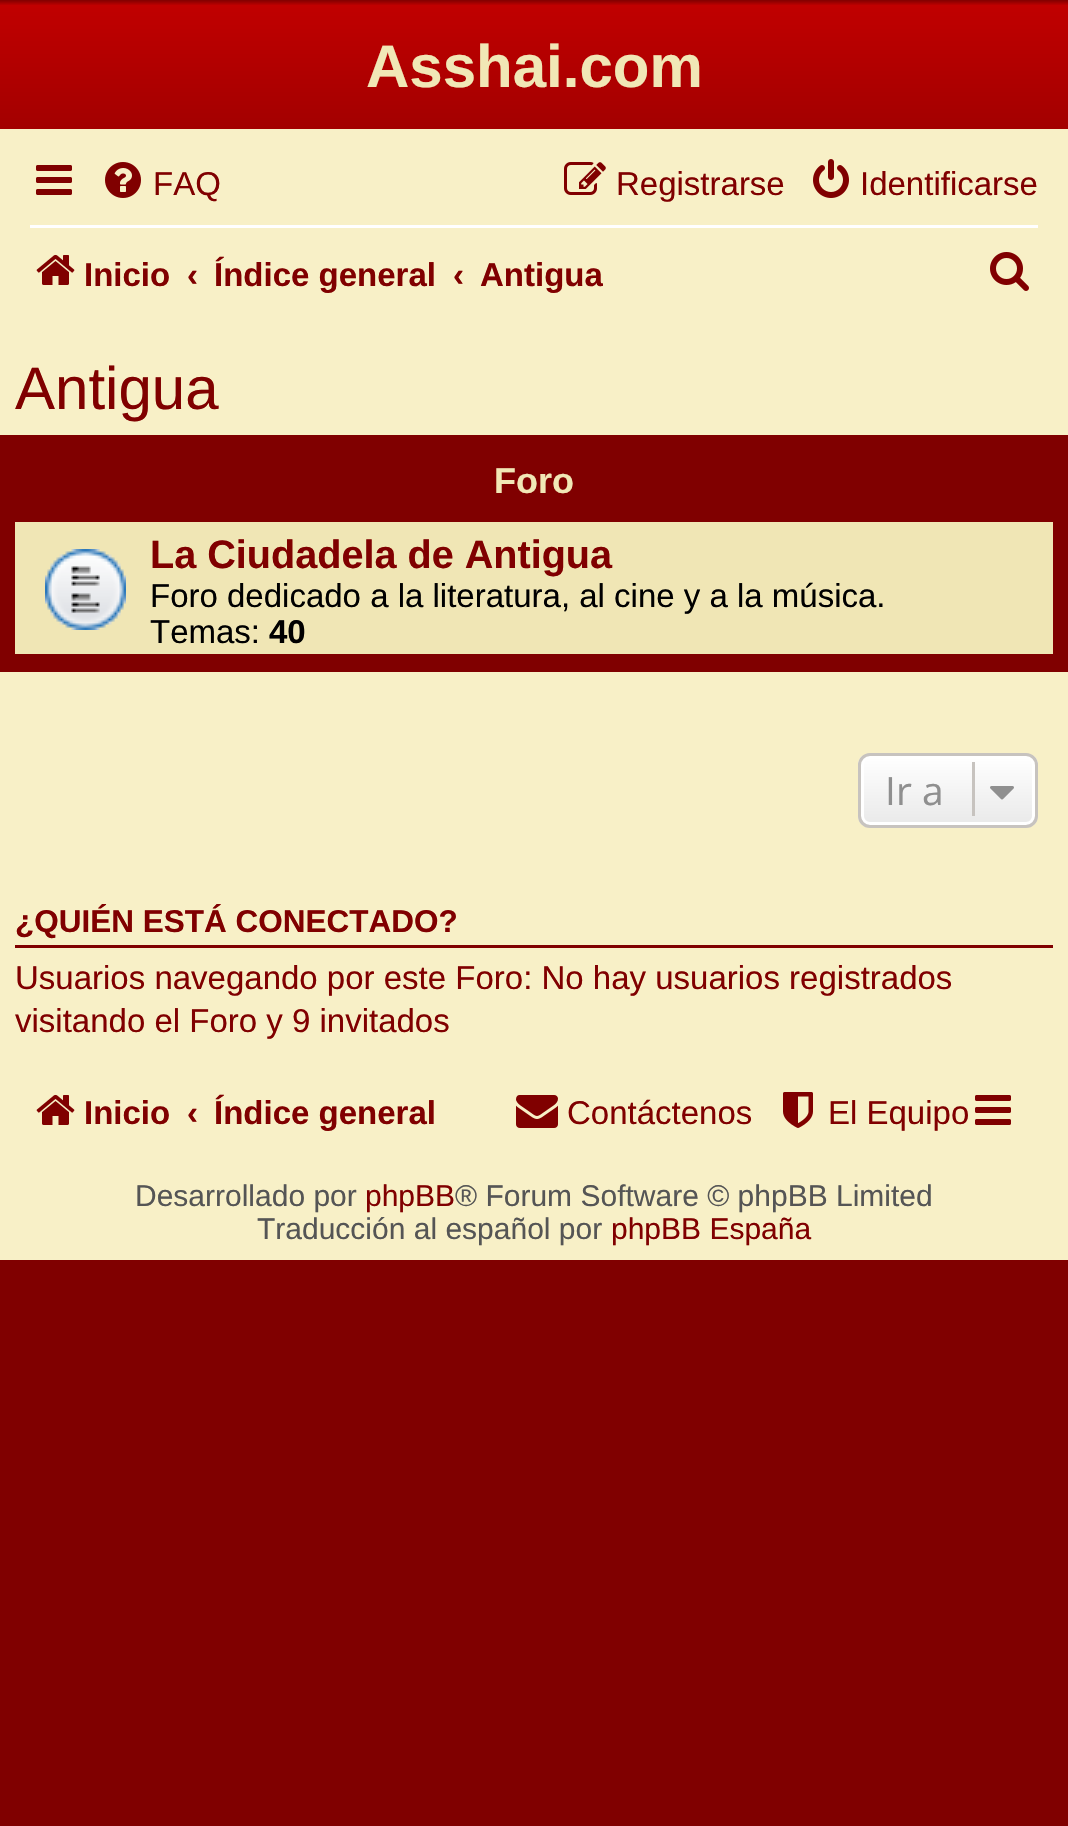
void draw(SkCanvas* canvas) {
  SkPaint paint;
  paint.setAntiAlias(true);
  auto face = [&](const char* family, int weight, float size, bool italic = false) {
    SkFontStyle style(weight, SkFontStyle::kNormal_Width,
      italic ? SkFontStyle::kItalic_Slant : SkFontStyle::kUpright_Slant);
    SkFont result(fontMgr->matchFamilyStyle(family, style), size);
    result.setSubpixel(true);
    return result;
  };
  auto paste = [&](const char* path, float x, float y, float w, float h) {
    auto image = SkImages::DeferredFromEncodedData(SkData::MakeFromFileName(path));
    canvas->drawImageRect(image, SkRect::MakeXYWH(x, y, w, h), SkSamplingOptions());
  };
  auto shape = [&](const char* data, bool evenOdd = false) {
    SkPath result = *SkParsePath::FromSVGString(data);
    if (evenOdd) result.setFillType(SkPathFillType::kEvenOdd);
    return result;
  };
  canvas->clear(0xff800000);
  paint.setColor(0xfff8f0c7);
  canvas->drawRect(SkRect::MakeXYWH(0, 129, 1068, 1131), paint);
  {
    const SkColor colors[] = {0xff800000, 0xffc00000, 0xff800000};
    const float stops[] = {0, 0.02f, 1};
    const SkPoint ends[] = {{534, 0}, {534, 276}};
    paint.setShader(SkGradientShader::MakeLinear(ends, colors, stops, 3, SkTileMode::kClamp));
    paint.setAlpha(255);
  }
  canvas->drawRect(SkRect::MakeXYWH(0, 0, 1068, 129), paint);
  paste("img/1.png", 36, 165, 36, 30);
  paste("img/2.png", 105, 162, 36, 36);
  paste("img/3.png", 564, 162, 42, 33);
  paste("img/4.png", 813, 159, 36, 39);
  paint.setShader(nullptr);
  paint.setColor(0xffffffff);
  canvas->drawRect(SkRect::MakeXYWH(30, 225, 1008, 3), paint);
  paste("img/5.png", 36, 254, 39, 31);
  paste("img/6.png", 990, 252, 39, 39);
  paint.setColor(0xff800000);
  canvas->drawRect(SkRect::MakeXYWH(0, 435, 1068, 237), paint);
  paint.setColor(0xfff0e6b5);
  canvas->drawRect(SkRect::MakeXYWH(15, 522, 1038, 132), paint);
  paste("img/7.png", 45, 549, 81, 81);
  canvas->save();
  canvas->clipPath(shape("M870 753H1026C1032.5 753 1038 758.5 1038 765V816C1038 822.5 1032.5 828 1026 828H870C863.5 828 858 822.5 858 816V765C858 758.5 863.5 753 870 753Z"), true);
  {
    const SkColor colors[] = {0xffffffff, 0xffe9e9e9};
    const float stops[] = {0, 1};
    const SkPoint ends[] = {{948, 756}, {948, 825}};
    paint.setShader(SkGradientShader::MakeLinear(ends, colors, stops, 2, SkTileMode::kClamp));
    paint.setAlpha(255);
  }
  canvas->drawRect(SkRect::MakeXYWH(858, 756, 180, 69), paint);
  canvas->restore();
  paint.setStroke(true);
  paint.setStrokeWidth(3);
  paint.setShader(nullptr);
  paint.setColor(0xffffffff);
  canvas->drawRoundRect(SkRect::MakeXYWH(862.5f, 757.5f, 171, 66), 7.5f, 7.5f, paint);
  paint.setColor(0xffc7c3bf);
  canvas->drawRoundRect(SkRect::MakeXYWH(859.5f, 754.5f, 177, 72), 10.5f, 10.5f, paint);
  paint.setStroke(false);
  canvas->drawRect(SkRect::MakeXYWH(972, 762, 3, 54), paint);
  paste("img/8.png", 990, 786, 24, 14);
  paint.setColor(0xff800000);
  canvas->drawRect(SkRect::MakeXYWH(15, 945, 1038, 3), paint);
  paste("img/5.png", 36, 1094, 39, 31);
  paste("img/9.png", 516, 1095, 42, 33);
  paste("img/10.png", 783, 1092, 30, 36);
  paste("img/1.png", 975, 1095, 36, 30);
  auto f0 = face("Liberation Sans", 700, 60);
  paint.setColor(0xfff1e7b6);
  canvas->drawString("Asshai.com", 366, 87, f0, paint);
  auto f1 = face("Liberation Sans", 400, 33);
  paint.setColor(0xff800000);
  {
    const struct { const char* s; float x, y; } items[] = {
      {"FAQ", 153, 195},
      {"Registrarse", 616, 195},
      {"Identificarse", 860, 195},
    };
    for (auto [s, x, y] : items) {
      canvas->drawString(s, x, y, f1, paint);
    }
  }
  auto f2 = face("Liberation Sans", 700, 33);
  {
    const struct { const char* s; float x, y; } items[] = {
      {"Inicio", 84, 286},
      {"‹", 187, 286},
      {"Índice general", 214, 286},
      {"‹", 453, 286},
    };
    for (auto [s, x, y] : items) {
      canvas->drawString(s, x, y, f2, paint);
    }
  }
  canvas->save();
  canvas->clipRect(SkRect::MakeXYWH(480, 237, 123, 72));
  canvas->drawString("Antigua", 480, 286, f2, paint);
  canvas->restore();
  auto f3 = face("Liberation Sans", 400, 60);
  canvas->drawString("Antigua", 15, 409, f3, paint);
  auto f4 = face("Liberation Sans", 700, 36);
  paint.setColor(0xfff1e7b6);
  canvas->drawString("Foro", 494, 493, f4, paint);
  auto f5 = face("Liberation Sans", 700, 39.6f);
  paint.setColor(0xff800000);
  canvas->drawString("La Ciudadela de Antigua", 150, 568, f5, paint);
  paint.setColor(0xff000000);
  canvas->drawString("Foro dedicado a la literatura, al cine y a la música.", 150, 607, f1, paint);
  canvas->drawString("Temas:", 150, 643, f1, paint);
  canvas->drawString("40", 269, 643, f2, paint);
  auto f6 = face("Open Sans", 400, 39);
  paint.setColor(0xff8f8f8f);
  canvas->drawString("Ir a", 885, 805, f6, paint);
  auto f7 = face("Liberation Sans", 700, 31.5f);
  paint.setColor(0xff800000);
  canvas->drawString("¿QUIÉN ESTÁ CONECTADO?", 15, 932, f7, paint);
  canvas->drawString("Usuarios navegando por este Foro: No hay usuarios registrados", 15, 989, f1, paint);
  canvas->drawString("visitando el Foro y 9 invitados", 15, 1032, f1, paint);
  {
    const struct { const char* s; float x, y; } items[] = {
      {"Inicio", 84, 1124},
      {"‹", 187, 1124},
      {"Índice general", 214, 1124},
    };
    for (auto [s, x, y] : items) {
      canvas->drawString(s, x, y, f2, paint);
    }
  }
  canvas->drawString("Contáctenos", 567, 1124, f1, paint);
  canvas->drawString("El Equipo", 828, 1124, f1, paint);
  auto f8 = face("Liberation Sans", 400, 30);
  paint.setColor(0xff555555);
  canvas->drawString("Desarrollado por", 135, 1206, f8, paint);
  paint.setColor(0xff800000);
  canvas->drawString("phpBB", 365, 1206, f8, paint);
  paint.setColor(0xff555555);
  canvas->drawString("® Forum Software © phpBB Limited", 455, 1206, f8, paint);
  canvas->drawString("Traducción al español por", 257, 1239, f8, paint);
  paint.setColor(0xff800000);
  canvas->drawString("phpBB España", 611, 1239, f8, paint);
}
